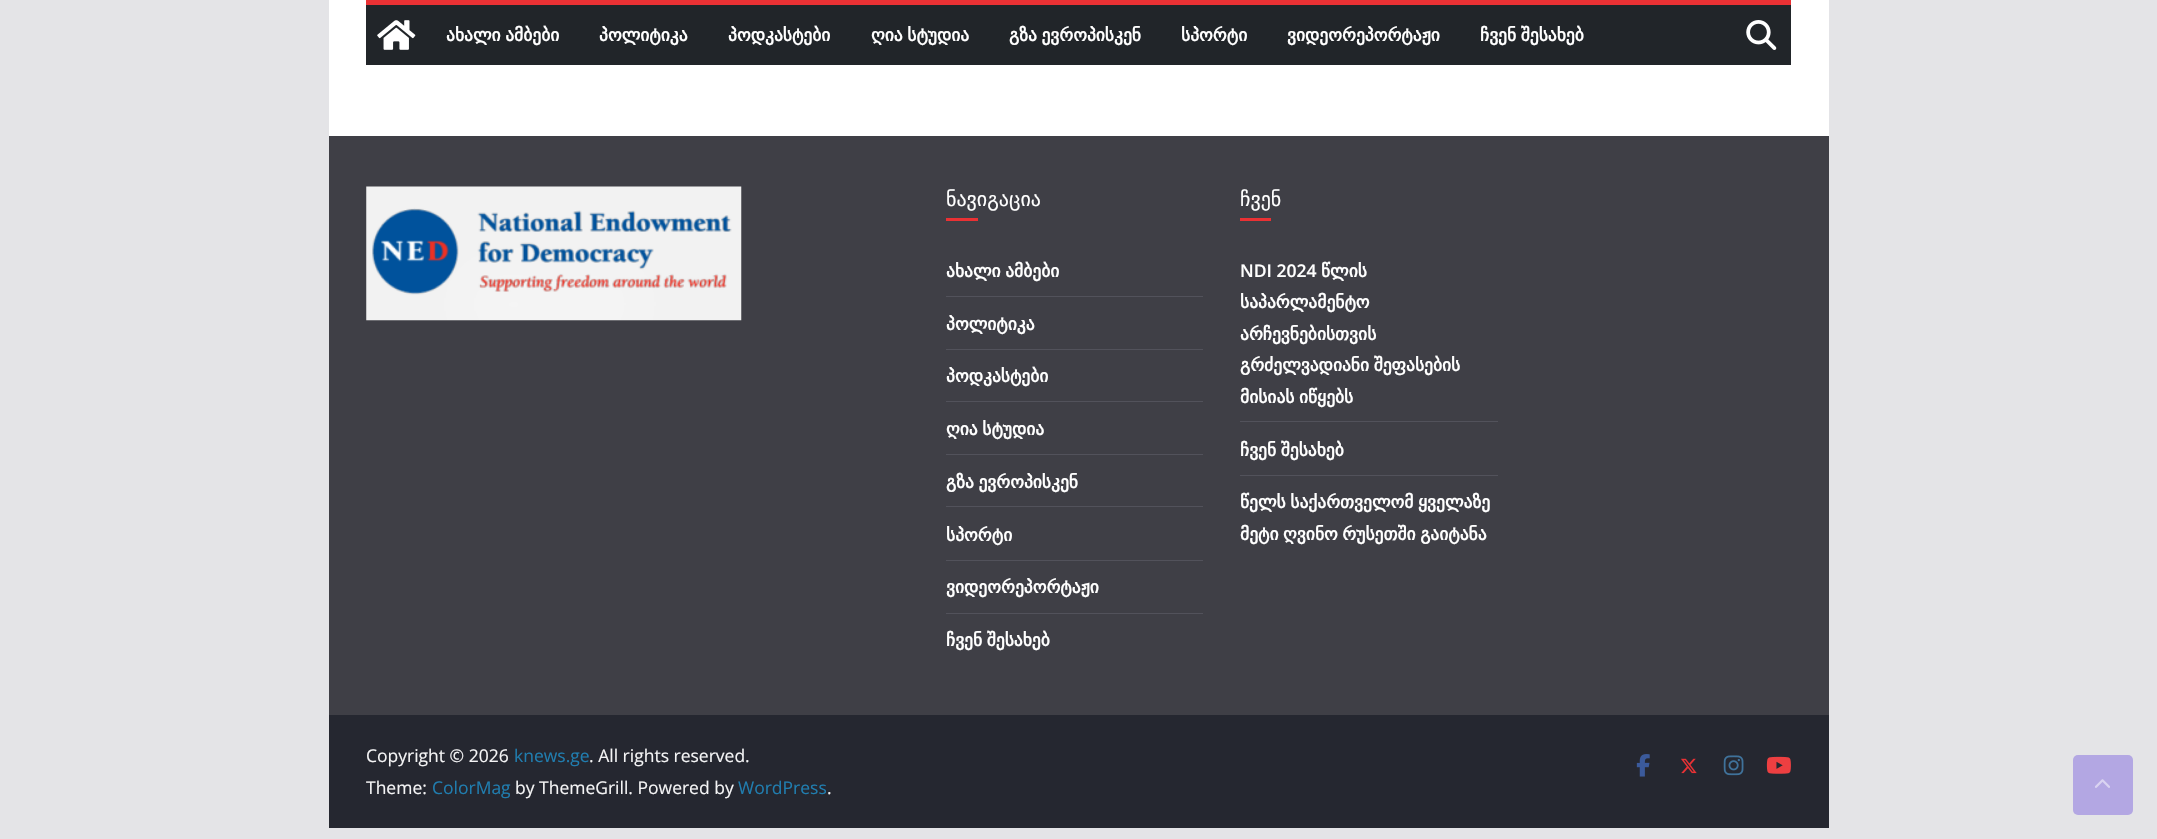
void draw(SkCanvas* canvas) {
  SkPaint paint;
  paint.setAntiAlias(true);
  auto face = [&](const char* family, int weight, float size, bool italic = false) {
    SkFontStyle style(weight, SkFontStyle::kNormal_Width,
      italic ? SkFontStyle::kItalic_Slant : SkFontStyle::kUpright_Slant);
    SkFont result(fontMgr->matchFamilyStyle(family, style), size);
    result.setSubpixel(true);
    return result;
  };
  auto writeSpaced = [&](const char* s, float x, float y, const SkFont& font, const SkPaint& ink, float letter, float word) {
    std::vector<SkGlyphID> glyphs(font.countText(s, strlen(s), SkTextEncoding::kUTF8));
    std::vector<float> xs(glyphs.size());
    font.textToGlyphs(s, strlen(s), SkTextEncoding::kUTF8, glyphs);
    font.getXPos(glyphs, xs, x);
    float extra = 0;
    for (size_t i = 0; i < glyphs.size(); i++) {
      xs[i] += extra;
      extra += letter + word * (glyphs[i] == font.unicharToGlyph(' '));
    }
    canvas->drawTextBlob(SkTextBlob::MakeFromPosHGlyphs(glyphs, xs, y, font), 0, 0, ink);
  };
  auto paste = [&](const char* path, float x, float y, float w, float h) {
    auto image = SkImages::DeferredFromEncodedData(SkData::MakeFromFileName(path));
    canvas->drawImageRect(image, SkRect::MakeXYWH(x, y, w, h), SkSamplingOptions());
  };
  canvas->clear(0xffe4e4e7);
  {
    const struct { float x, y, w, h; SkColor color; } items[] = {
      {329, 0, 1500, 136, 0xffffffff},
      {366, 5, 1425, 60, 0xff212529},
      {366, 0, 1425, 5, 0xffea3134},
    };
    for (auto [x, y, w, h, color] : items) {
      paint.setColor(color);
      canvas->drawRect(SkRect::MakeXYWH(x, y, w, h), paint);
    }
  }
  paste("img/1.png", 377, 20, 39, 30);
  paste("img/2.png", 1746, 20, 31, 30);
  paint.setColor(0xff3f3f46);
  canvas->drawRect(SkRect::MakeXYWH(329, 136, 1500, 579), paint);
  paste("img/3.png", 366, 186, 376, 135);
  {
    const struct { float x, y, w, h; SkColor color; } items[] = {
      {946, 218, 32, 3, 0xffea3134},
      {946, 296, 257, 1, 0xff52525b},
      {946, 349, 257, 1, 0xff52525b},
      {946, 401, 257, 1, 0xff52525b},
      {946, 454, 257, 1, 0xff52525b},
      {946, 506, 257, 1, 0xff52525b},
      {946, 560, 257, 1, 0xff52525b},
      {946, 613, 257, 1, 0xff52525b},
      {1240, 218, 31, 3, 0xffea3134},
      {1240, 421, 258, 1, 0xff52525b},
      {1240, 475, 258, 1, 0xff52525b},
      {329, 715, 1500, 113, 0xff252730},
    };
    for (auto [x, y, w, h, color] : items) {
      paint.setColor(color);
      canvas->drawRect(SkRect::MakeXYWH(x, y, w, h), paint);
    }
  }
  paste("img/4.png", 1636, 754, 14, 23);
  paste("img/5.png", 1681, 758, 16, 16);
  paste("img/6.png", 1723, 755, 21, 21);
  paste("img/7.png", 1766, 756, 25, 18);
  paint.setColor(0xffb3a7e3);
  canvas->drawRoundRect(SkRect::MakeXYWH(2073, 755, 60, 60), 5, 5, paint);
  paste("img/8.png", 2095, 779, 15, 9);
  auto f0 = face("DejaVu Sans", 700, 17.5f);
  paint.setColor(0xffffffff);
  writeSpaced("ახალი ამბები", 446, 41, f0, paint, 0, -1);
  canvas->drawString("პოლიტიკა", 599, 41, f0, paint);
  canvas->drawString("პოდკასტები", 728, 41, f0, paint);
  writeSpaced("ღია სტუდია", 871, 41, f0, paint, 0, -1);
  writeSpaced("გზა ევროპისკენ", 1009, 41, f0, paint, 0, -1);
  canvas->drawString("სპორტი", 1181, 41, f0, paint);
  canvas->drawString("ვიდეორეპორტაჟი", 1287, 41, f0, paint);
  writeSpaced("ჩვენ შესახებ", 1480, 41, f0, paint, 0, -1);
  auto f1 = face("DejaVu Sans", 400, 20);
  canvas->drawString("ნავიგაცია", 946, 206, f1, paint);
  writeSpaced("ახალი ამბები", 946, 277, f0, paint, 0, -1);
  canvas->drawString("პოლიტიკა", 946, 330, f0, paint);
  canvas->drawString("პოდკასტები", 946, 382, f0, paint);
  writeSpaced("ღია სტუდია", 946, 435, f0, paint, 0, -1);
  writeSpaced("გზა ევროპისკენ", 946, 488, f0, paint, 0, -1);
  canvas->drawString("სპორტი", 946, 541, f0, paint);
  canvas->drawString("ვიდეორეპორტაჟი", 946, 593, f0, paint);
  writeSpaced("ჩვენ შესახებ", 946, 646, f0, paint, 0, -1);
  canvas->drawString("ჩვენ", 1240, 206, f1, paint);
  auto f2 = face("Open Sans", 600, 17.5f);
  canvas->drawString("NDI 2024", 1240, 277, f2, paint);
  {
    const struct { const char* s; float x, y; } items[] = {
      {"წლის", 1321, 277},
      {"საპარლამენტო", 1240, 308},
      {"არჩევნებისთვის", 1240, 340},
    };
    for (auto [s, x, y] : items) {
      canvas->drawString(s, x, y, f0, paint);
    }
  }
  {
    const struct { const char* s; float x, y; } items[] = {
      {"გრძელვადიანი შეფასების", 1240, 371},
      {"მისიას იწყებს", 1240, 403},
      {"ჩვენ შესახებ", 1240, 456},
      {"წელს საქართველომ ყველაზე", 1240, 508},
      {"მეტი ღვინო რუსეთში გაიტანა", 1240, 540},
    };
    for (auto [s, x, y] : items) {
      writeSpaced(s, x, y, f0, paint, 0, -1);
    }
  }
  auto f3 = face("Open Sans", 400, 17.5f);
  paint.setColor(0xfff4f4f5);
  canvas->drawString("Copyright © 2026", 366, 762, f3, paint);
  paint.setColor(0xff207daf);
  canvas->drawString("knews.ge", 514, 762, f3, paint);
  paint.setColor(0xfff4f4f5);
  canvas->drawString(". All rights reserved.", 589, 762, f3, paint);
  canvas->drawString("Theme:", 366, 794, f3, paint);
  paint.setColor(0xff207daf);
  canvas->drawString("ColorMag", 432, 794, f3, paint);
  paint.setColor(0xfff4f4f5);
  canvas->drawString("by ThemeGrill. Powered by", 515, 794, f3, paint);
  paint.setColor(0xff207daf);
  canvas->drawString("WordPress", 738, 794, f3, paint);
  paint.setColor(0xfff4f4f5);
  canvas->drawString(".", 827, 794, f3, paint);
}
